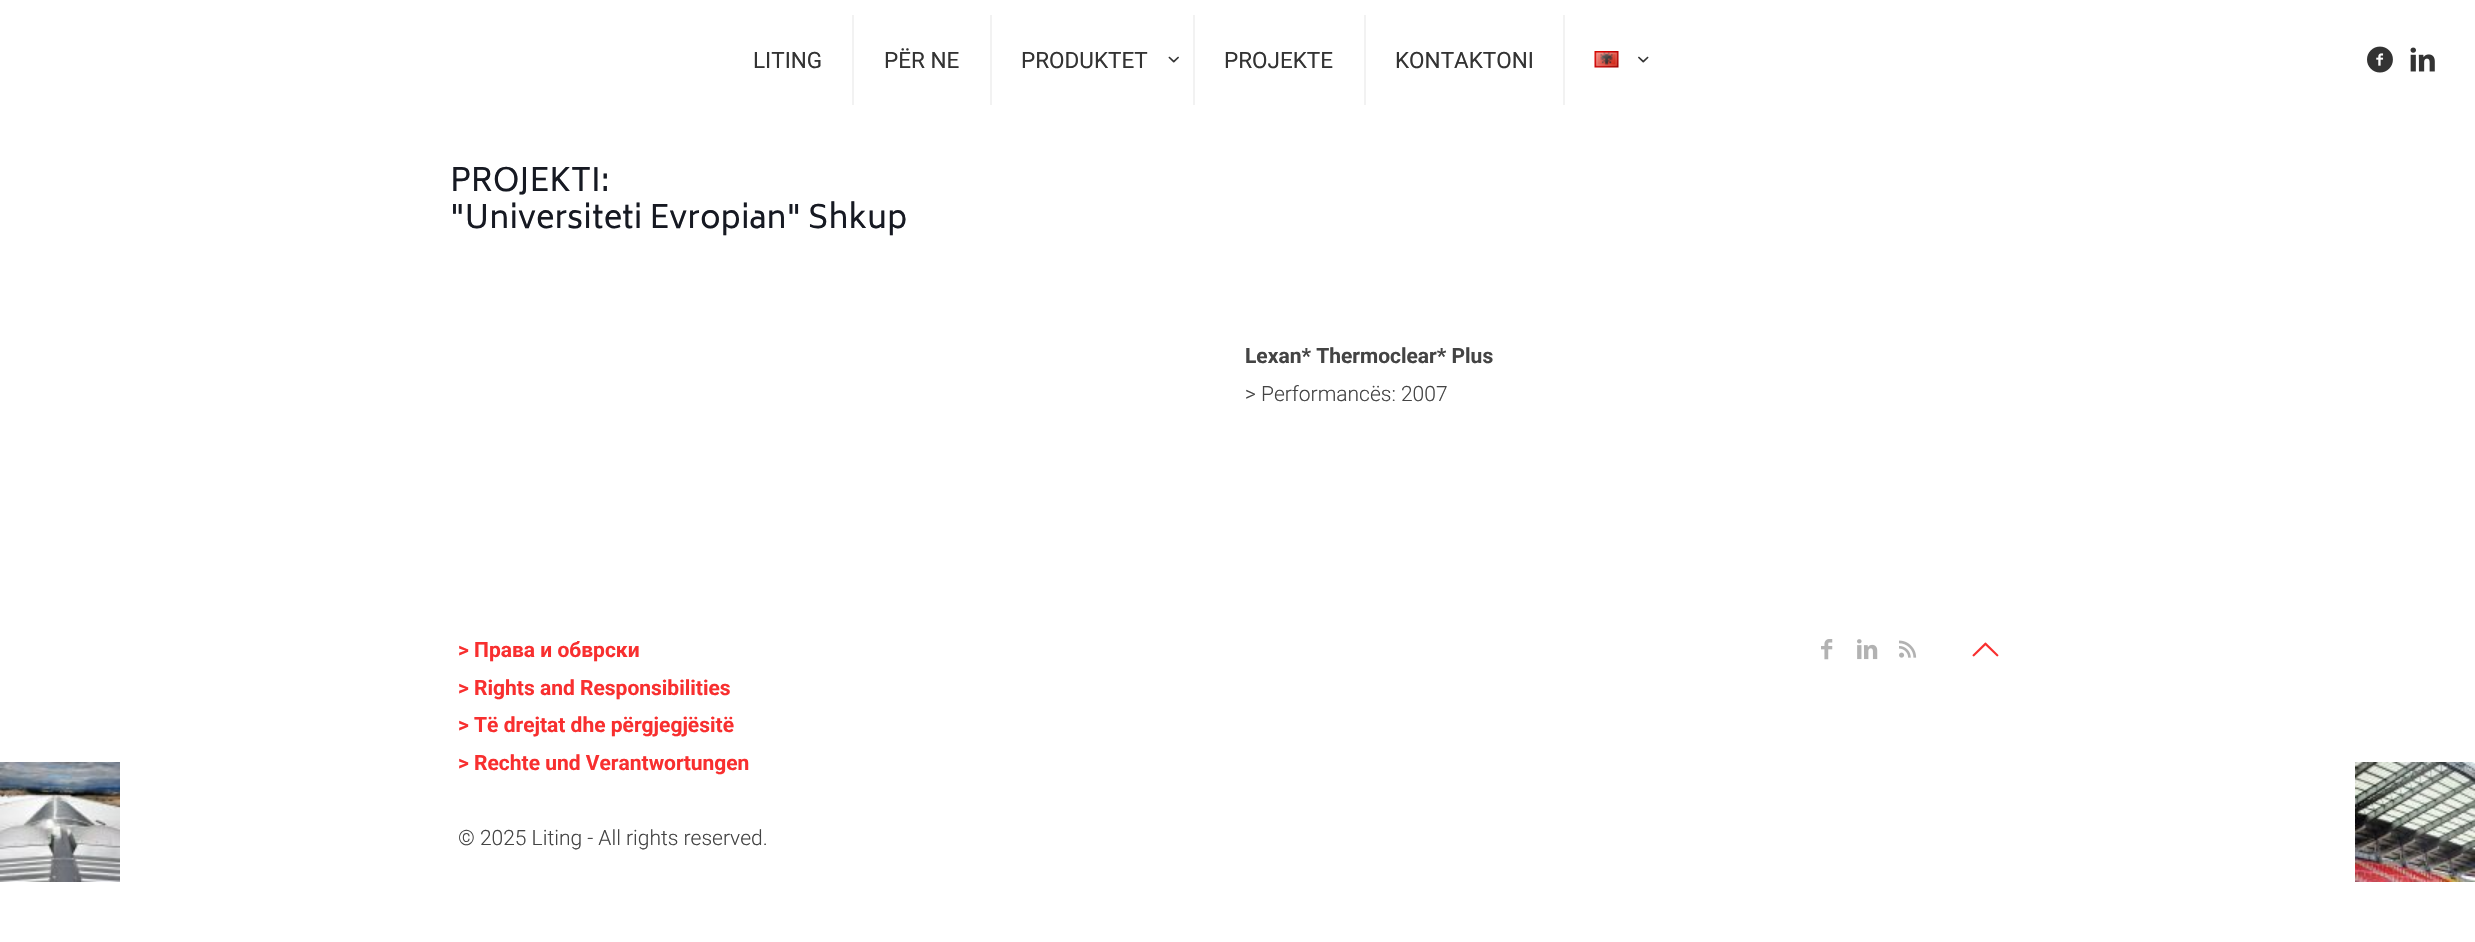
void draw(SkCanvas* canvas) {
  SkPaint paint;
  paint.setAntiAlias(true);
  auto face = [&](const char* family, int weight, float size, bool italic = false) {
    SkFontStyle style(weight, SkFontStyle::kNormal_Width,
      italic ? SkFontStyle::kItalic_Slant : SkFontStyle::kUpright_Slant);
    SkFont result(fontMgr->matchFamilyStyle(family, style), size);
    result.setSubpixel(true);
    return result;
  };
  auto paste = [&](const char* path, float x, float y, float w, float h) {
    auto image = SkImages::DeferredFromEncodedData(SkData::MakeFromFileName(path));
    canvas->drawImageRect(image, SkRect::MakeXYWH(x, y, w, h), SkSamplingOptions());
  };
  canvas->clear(0xffffffff);
  paste("img/1.png", 0, 762, 120, 120);
  {
    const struct { float x, y, w, h; SkColor color; } items[] = {
      {852, 15, 2, 90, 0xfff2f2f2},
      {990, 15, 2, 90, 0xfff2f2f2},
      {1193, 15, 2, 90, 0xfff2f2f2},
    };
    for (auto [x, y, w, h, color] : items) {
      paint.setColor(color);
      canvas->drawRect(SkRect::MakeXYWH(x, y, w, h), paint);
    }
  }
  paste("img/2.png", 1168, 56, 11, 7);
  canvas->drawRect(SkRect::MakeXYWH(1364, 15, 2, 90), paint);
  canvas->drawRect(SkRect::MakeXYWH(1563, 15, 2, 90), paint);
  paste("img/3.png", 1594, 51, 25, 17);
  paste("img/4.png", 1638, 56, 11, 7);
  paste("img/5.png", 2367, 46, 26, 27);
  paste("img/6.png", 2410, 47, 25, 25);
  paste("img/7.png", 1821, 639, 12, 21);
  paste("img/8.png", 1857, 639, 21, 21);
  paste("img/9.png", 1899, 640, 18, 18);
  paste("img/10.png", 1972, 642, 27, 15);
  paste("img/11.png", 2355, 762, 120, 120);
  auto f0 = face("Roboto", 400, 22.5f);
  paint.setColor(0xff333333);
  {
    const struct { const char* s; float x, y; } items[] = {
      {"LITING", 753, 68},
      {"PËR NE", 884, 68},
      {"PRODUKTET", 1021, 68},
      {"PROJEKTE", 1224, 68},
      {"KONTAKTONI", 1395, 68},
    };
    for (auto [s, x, y] : items) {
      canvas->drawString(s, x, y, f0, paint);
    }
  }
  auto f1 = face("Biryani", 400, 31.5f);
  paint.setColor(0xff161922);
  canvas->drawString("PROJEKTI:", 450, 191, f1, paint);
  canvas->drawString("\"Universiteti Evropian\" Shkup", 450, 228, f1, paint);
  auto f2 = face("Roboto", 700, 21);
  paint.setColor(0xff444444);
  canvas->drawString("Lexan* Thermoclear* Plus", 1245, 363, f2, paint);
  auto f3 = face("Roboto", 300, 21);
  canvas->drawString("> Performancës: 2007", 1245, 401, f3, paint);
  paint.setColor(0xfff82f2f);
  {
    const struct { const char* s; float x, y; } items[] = {
      {"> Права и oбврски", 458, 657},
      {"> Rights and Responsibilities", 458, 695},
      {"> Të drejtat dhe përgjegjësitë", 458, 732},
      {"> Rechte und Verantwortungen", 458, 770},
    };
    for (auto [s, x, y] : items) {
      canvas->drawString(s, x, y, f2, paint);
    }
  }
  paint.setColor(0xff444444);
  canvas->drawString("© 2025 Liting - All rights reserved.", 458, 845, f3, paint);
}
